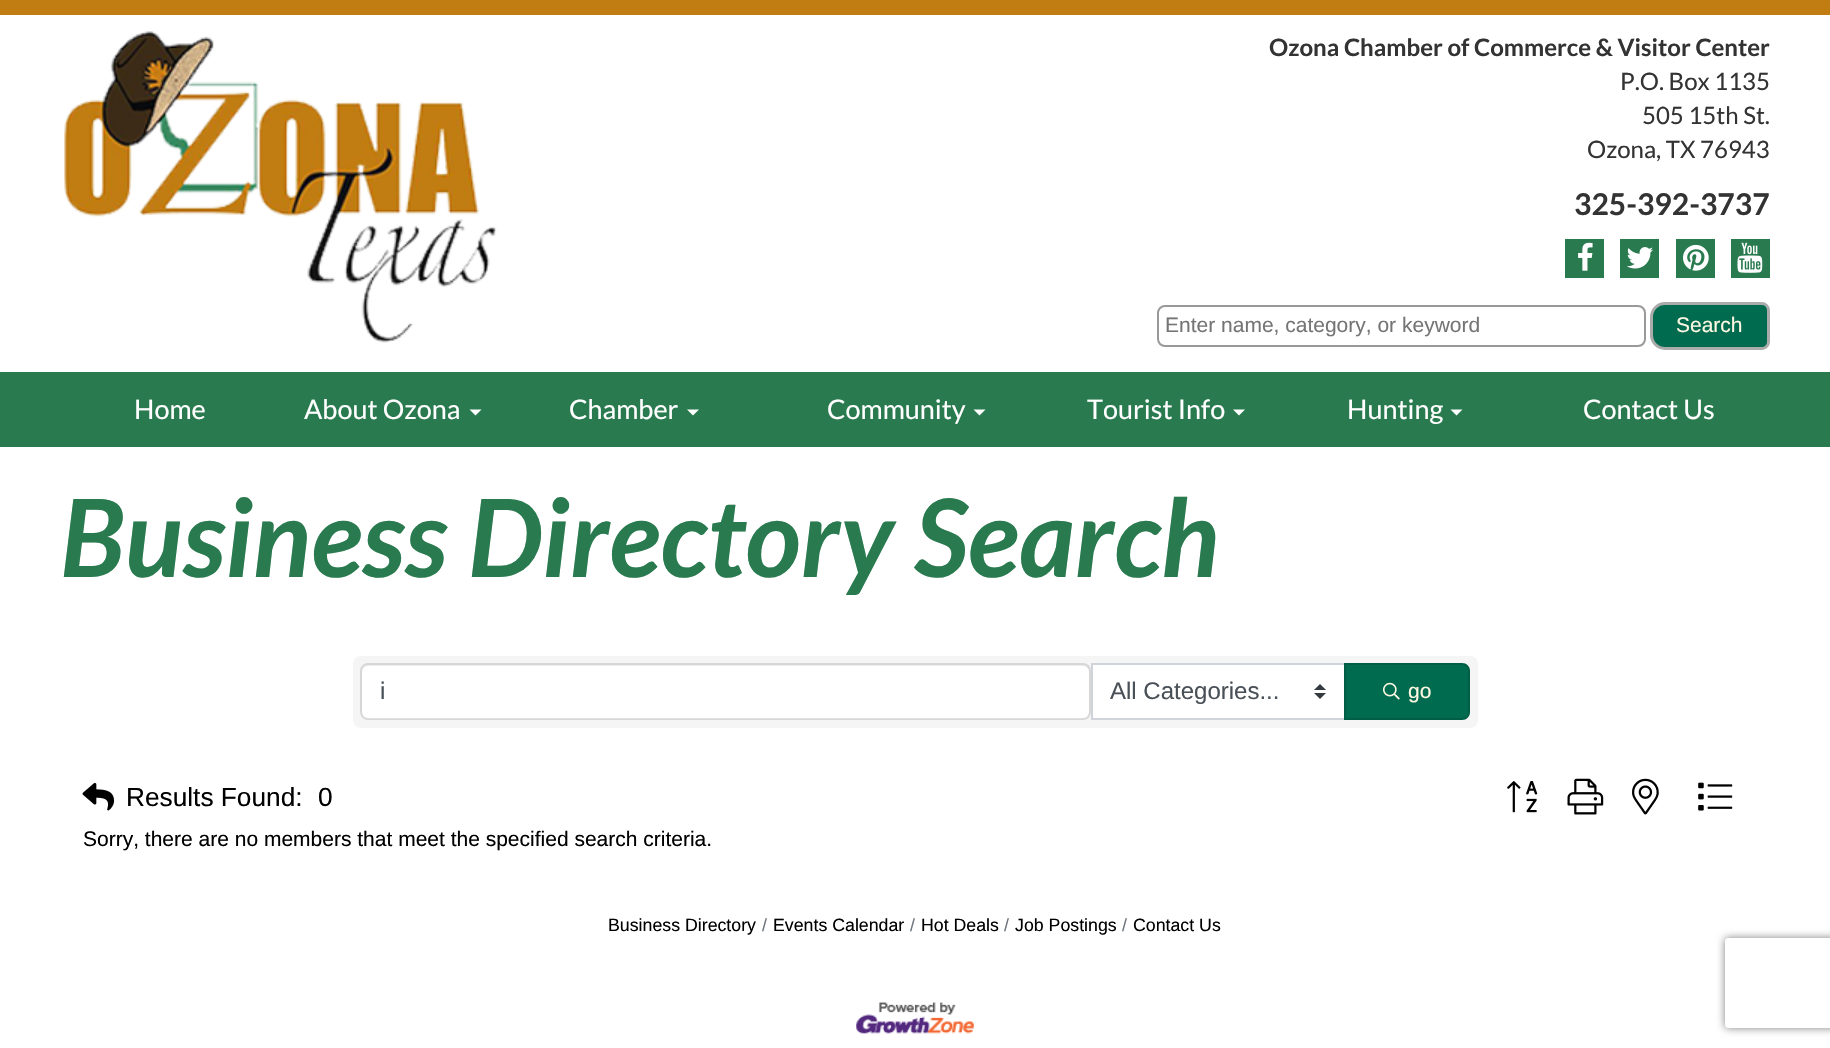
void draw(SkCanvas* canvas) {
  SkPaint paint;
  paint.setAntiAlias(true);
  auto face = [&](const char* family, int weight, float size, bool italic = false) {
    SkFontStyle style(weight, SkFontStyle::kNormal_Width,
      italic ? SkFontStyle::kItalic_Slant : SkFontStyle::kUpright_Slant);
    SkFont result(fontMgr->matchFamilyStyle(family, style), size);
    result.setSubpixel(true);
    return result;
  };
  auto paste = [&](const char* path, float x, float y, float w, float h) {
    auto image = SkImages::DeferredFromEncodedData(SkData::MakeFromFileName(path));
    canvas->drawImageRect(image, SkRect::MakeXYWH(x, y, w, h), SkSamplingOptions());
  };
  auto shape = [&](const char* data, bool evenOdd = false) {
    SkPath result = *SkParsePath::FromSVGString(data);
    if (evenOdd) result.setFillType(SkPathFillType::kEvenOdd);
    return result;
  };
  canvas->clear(0xffffffff);
  paint.setColor(0xffc17d12);
  canvas->drawRect(SkRect::MakeXYWH(0, 0, 1830, 15), paint);
  paste("img/1.png", 64, 31, 433, 312);
  paint.setColor(0xff297a4f);
  canvas->drawRect(SkRect::MakeXYWH(1565, 239, 39, 39), paint);
  paste("img/2.png", 1578, 242, 15, 29);
  canvas->drawRect(SkRect::MakeXYWH(1620, 239, 39, 39), paint);
  paste("img/3.png", 1627, 247, 26, 22);
  canvas->drawRect(SkRect::MakeXYWH(1676, 239, 39, 39), paint);
  paste("img/4.png", 1683, 244, 26, 27);
  canvas->drawRect(SkRect::MakeXYWH(1731, 239, 39, 39), paint);
  paste("img/5.png", 1737, 242, 26, 31);
  paint.setStroke(true);
  paint.setStrokeWidth(2);
  paint.setColor(0xff999999);
  canvas->drawRoundRect(SkRect::MakeXYWH(1158, 306, 487, 40), 7, 7, paint);
  paint.setStroke(false);
  paint.setColor(0xff006b4f);
  canvas->drawPath(shape("M1665 303.5H1762C1765.5 303.5 1768.5 306.5 1768.5 310V342C1768.5 345.5 1765.5 348.5 1762 348.5H1665C1657.5 348.5 1651.5 342.5 1651.5 335V317C1651.5 309.5 1657.5 303.5 1665 303.5Z"), paint);
  paint.setStroke(true);
  paint.setStrokeWidth(3);
  paint.setColor(0xffababab);
  canvas->drawPath(shape("M1665 303.5H1762C1765.5 303.5 1768.5 306.5 1768.5 310V342C1768.5 345.5 1765.5 348.5 1762 348.5H1665C1657.5 348.5 1651.5 342.5 1651.5 335V317C1651.5 309.5 1657.5 303.5 1665 303.5Z"), paint);
  paint.setStroke(false);
  paint.setColor(0xff297a4f);
  canvas->drawRect(SkRect::MakeXYWH(0, 372, 1830, 75), paint);
  paint.setColor(0xffffffff);
  canvas->drawPath(shape("M469.5 409.5H481.5L475.5 415.5Z"), paint);
  canvas->drawPath(shape("M687 409.5H699L693 415.5Z"), paint);
  canvas->drawPath(shape("M973.5 409.5H985.5L979.5 415.5Z"), paint);
  canvas->drawPath(shape("M1233 409.5H1245L1239 415.5Z"), paint);
  canvas->drawPath(shape("M1450.5 409.5H1462.5L1456.5 415.5Z"), paint);
  paint.setColor(0xfff5f5f5);
  canvas->drawRoundRect(SkRect::MakeXYWH(353, 656, 1125, 72), 8, 8, paint);
  paint.setColor(0xffffffff);
  canvas->drawRoundRect(SkRect::MakeXYWH(362, 665, 727, 54), 6, 6, paint);
  paint.setColor(0xffececec);
  canvas->drawPath(shape("M368 666H1083C1086 666 1089 669 1089 672V671C1089 668 1086 665 1083 665H368C365 665 362 668 362 671V672C362 669 364 666 368 666Z"), paint);
  paint.setStroke(true);
  paint.setStrokeWidth(2);
  paint.setColor(0x1f000000);
  canvas->drawRoundRect(SkRect::MakeXYWH(361, 664, 729, 55), 7, 7, paint);
  paint.setStroke(false);
  paint.setColor(0xffffffff);
  canvas->drawRect(SkRect::MakeXYWH(1093, 665, 251, 53), paint);
  paste("img/6.png", 1314, 684, 12, 15);
  paint.setStroke(true);
  paint.setColor(0xffced4da);
  canvas->drawRect(SkRect::MakeXYWH(1092, 664, 253, 55), paint);
  paint.setStroke(false);
  paint.setColor(0xff006b4f);
  canvas->drawPath(shape("M1344 663H1462C1466.5 663 1470 666.5 1470 671V712C1470 716.5 1466.5 720 1462 720H1344Z"), paint);
  paint.setStroke(true);
  paint.setColor(0x1f000000);
  canvas->drawPath(shape("M1345 664H1462C1466 664 1469 667 1469 671V712C1469 716 1466 719 1462 719H1345Z"), paint);
  paste("img/7.png", 1383, 682, 17, 18);
  paste("img/8.png", 82, 782, 33, 29);
  paste("img/9.png", 1507, 781, 31, 32);
  paste("img/10.png", 1567, 778, 37, 37);
  paste("img/11.png", 1632, 778, 27, 37);
  paste("img/12.png", 1698, 782, 35, 29);
  paste("img/13.png", 856, 1002, 118, 32);
  canvas->save();
  canvas->clipPath(shape("M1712 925H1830V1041H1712ZM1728 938H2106C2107.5 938 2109 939.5 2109 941V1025C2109 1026.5 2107.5 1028 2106 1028H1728C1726.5 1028 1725 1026.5 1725 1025V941C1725 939.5 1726.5 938 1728 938Z", true), true);
  paint.setStroke(false);
  paint.setColor(0xff808080);
  paint.setMaskFilter(SkMaskFilter::MakeBlur(kNormal_SkBlurStyle, 4));
  canvas->drawRoundRect(SkRect::MakeXYWH(1725, 938, 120, 90), 3, 3, paint);
  paint.setMaskFilter(nullptr);
  canvas->restore();
  auto f0 = face("Lato", 700, 24);
  paint.setColor(0xff333333);
  canvas->drawString("Ozona Chamber of Commerce & Visitor Center", 1269, 56, f0, paint);
  auto f1 = face("Lato", 400, 24);
  {
    const struct { const char* s; float x, y; } items[] = {
      {"P.O. Box 1135", 1620, 90},
      {"505 15th St.", 1642, 124},
      {"Ozona, TX 76943", 1587, 158},
    };
    for (auto [s, x, y] : items) {
      canvas->drawString(s, x, y, f1, paint);
    }
  }
  auto f2 = face("Lato", 700, 30);
  canvas->drawString("325-392-3737", 1574, 215, f2, paint);
  auto f3 = face("Liberation Sans", 400, 21);
  paint.setColor(0xff757575);
  canvas->drawString("Enter name, category, or keyword", 1165, 332, f3, paint);
  paint.setColor(0xfffff8e3);
  canvas->drawString("Search", 1676, 332, f3, paint);
  auto f4 = face("Lato", 400, 27);
  paint.setColor(0xffffffff);
  {
    const struct { const char* s; float x, y; } items[] = {
      {"Home", 134, 419},
      {"About Ozona", 304, 419},
      {"Chamber", 569, 419},
      {"Community", 827, 419},
      {"Tourist Info", 1087, 419},
      {"Hunting", 1347, 419},
      {"Contact Us", 1583, 419},
    };
    for (auto [s, x, y] : items) {
      canvas->drawString(s, x, y, f4, paint);
    }
  }
  auto f5 = face("Lato", 700, 108, true);
  paint.setColor(0xff297a4f);
  canvas->drawString("Business Directory Search", 60, 577, f5, paint);
  auto f6 = face("Liberation Sans", 400, 24);
  paint.setColor(0xff495057);
  canvas->drawString("i", 380, 699, f6, paint);
  canvas->drawString("All Categories...", 1110, 699, f6, paint);
  paint.setColor(0xfffff8e3);
  canvas->drawString("go", 1408, 698, f3, paint);
  auto f7 = face("Liberation Sans", 400, 26.25f);
  paint.setColor(0xff000000);
  canvas->drawString("Results Found:", 126, 806, f7, paint);
  canvas->drawString("0", 318, 806, f7, paint);
  canvas->drawString("Sorry, there are no members that meet the specified search criteria.", 83, 846, f3, paint);
  auto f8 = face("Liberation Sans", 400, 17.75f);
  canvas->drawString("Business Directory", 608, 931, f8, paint);
  paint.setColor(0xff6c757d);
  canvas->drawString("/", 762, 931, f8, paint);
  paint.setColor(0xff000000);
  canvas->drawString("Events Calendar", 773, 931, f8, paint);
  paint.setColor(0xff6c757d);
  canvas->drawString("/", 910, 931, f8, paint);
  paint.setColor(0xff000000);
  canvas->drawString("Hot Deals", 921, 931, f8, paint);
  paint.setColor(0xff6c757d);
  canvas->drawString("/", 1004, 931, f8, paint);
  paint.setColor(0xff000000);
  canvas->drawString("Job Postings", 1015, 931, f8, paint);
  paint.setColor(0xff6c757d);
  canvas->drawString("/", 1122, 931, f8, paint);
  paint.setColor(0xff000000);
  canvas->drawString("Contact Us", 1133, 931, f8, paint);
}
